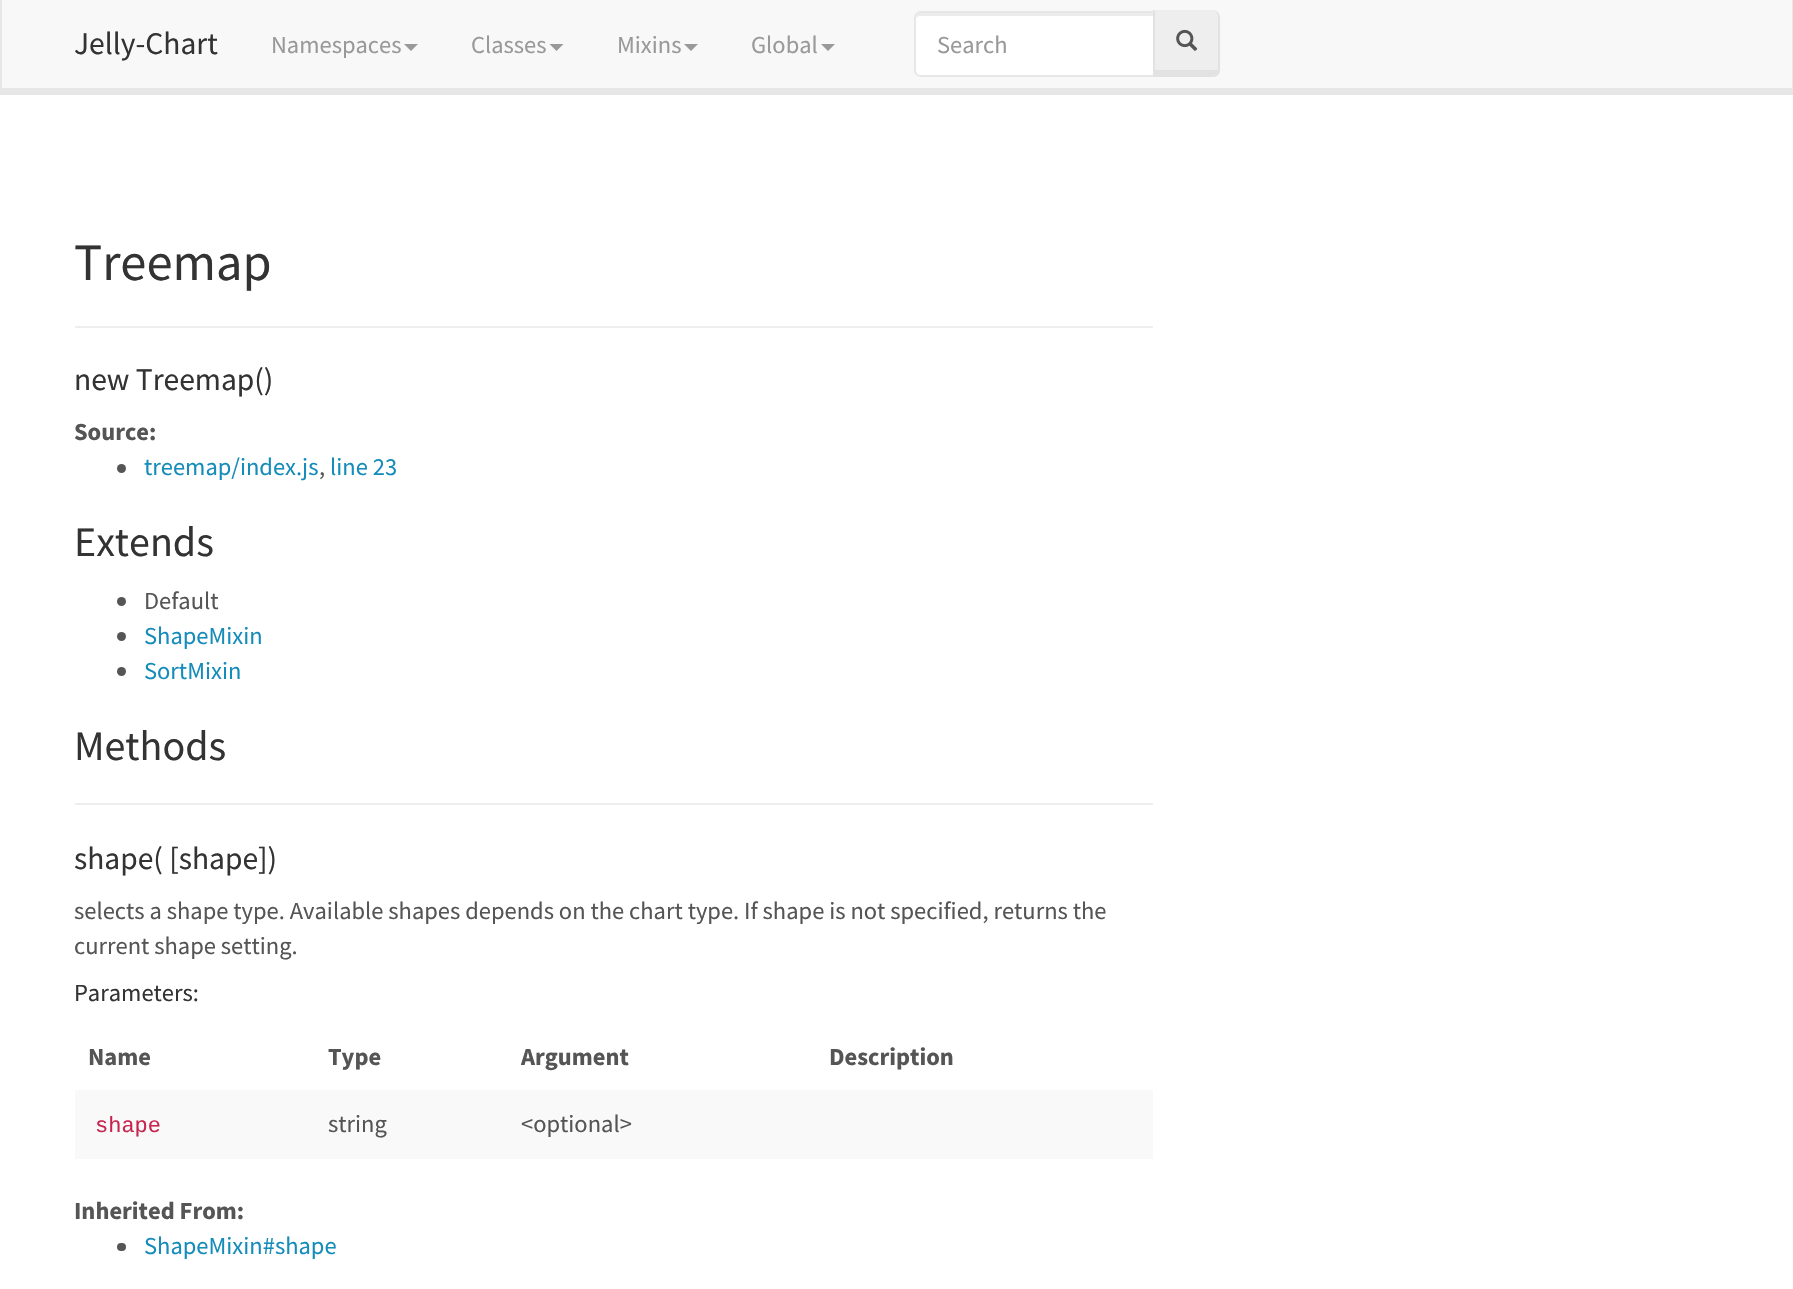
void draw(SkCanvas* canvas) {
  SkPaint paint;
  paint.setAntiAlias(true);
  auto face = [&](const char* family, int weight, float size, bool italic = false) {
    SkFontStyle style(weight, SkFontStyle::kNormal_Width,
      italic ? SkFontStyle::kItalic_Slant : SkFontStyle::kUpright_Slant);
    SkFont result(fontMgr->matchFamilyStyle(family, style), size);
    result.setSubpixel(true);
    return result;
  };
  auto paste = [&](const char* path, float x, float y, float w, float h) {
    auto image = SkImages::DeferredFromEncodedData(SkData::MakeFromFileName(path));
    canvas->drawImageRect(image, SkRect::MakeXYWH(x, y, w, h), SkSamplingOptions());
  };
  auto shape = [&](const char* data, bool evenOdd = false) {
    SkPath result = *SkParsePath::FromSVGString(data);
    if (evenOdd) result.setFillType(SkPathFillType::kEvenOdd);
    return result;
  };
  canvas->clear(0xffffffff);
  {
    const struct { float x, y, w, h; SkColor color; } items[] = {
      {2, 0, 1790, 88, 0xfff8f8f8},
      {1792, 0, 1, 95, 0xffe7e7e7},
      {0, 88, 1793, 7, 0xffe7e7e7},
      {0, 0, 2, 95, 0xffe7e7e7},
    };
    for (auto [x, y, w, h, color] : items) {
      paint.setColor(color);
      canvas->drawRect(SkRect::MakeXYWH(x, y, w, h), paint);
    }
  }
  paint.setColor(0xff999999);
  canvas->drawPath(shape("M404 44H418L411 51Z"), paint);
  canvas->drawPath(shape("M549.5 44H563.5L556.5 51Z"), paint);
  canvas->drawPath(shape("M684 44H698L691 51Z"), paint);
  canvas->drawPath(shape("M821 44H835L828 51Z"), paint);
  paint.setColor(0xffffffff);
  canvas->drawPath(shape("M921 11H1155V77H921C917 77 914 74 914 70V18C914 14 917 11 921 11Z"), paint);
  paint.setColor(0xffececec);
  canvas->drawPath(shape("M920 16H1153V12H920C917 12 915 14 915 17V21C915 18 918 16 920 16Z"), paint);
  paint.setStroke(true);
  paint.setStrokeWidth(2);
  paint.setColor(0xffe7e7e7);
  canvas->drawPath(shape("M921 12H1154V76H921C917.5 76 915 73.5 915 70V18C915 14.5 917.5 12 921 12Z"), paint);
  paint.setStroke(false);
  paint.setColor(0xffeeeeee);
  canvas->drawPath(shape("M1155 10H1213C1216 10 1218 14 1218 18V70H1155Z"), paint);
  paint.setColor(0xffe2e2e2);
  canvas->drawPath(shape("M1153 10H1213C1217 10 1220 14 1220 18V70C1220 74 1217 77 1213 77H1153ZM1155 10H1213C1216 10 1218 14 1218 18V70H1155Z", true), paint);
  paste("img/1.png", 1176, 29, 22, 22);
  paint.setColor(0xffeeeeee);
  canvas->drawRect(SkRect::MakeXYWH(75, 326, 1078, 2), paint);
  paint.setColor(0xff555555);
  canvas->drawCircle(121.5f, 468.5f, 4.5f, paint);
  canvas->drawCircle(121.5f, 601.5f, 4.5f, paint);
  canvas->drawCircle(121.5f, 636.5f, 4.5f, paint);
  canvas->drawCircle(121.5f, 671.5f, 4.5f, paint);
  paint.setColor(0xffeeeeee);
  canvas->drawRect(SkRect::MakeXYWH(75, 803, 1078, 2), paint);
  paint.setColor(0xfff9f9f9);
  canvas->drawRect(SkRect::MakeXYWH(75, 1090, 1078, 69), paint);
  paint.setColor(0xff555555);
  canvas->drawRoundRect(SkRect::MakeXYWH(117, 1243, 9, 8), 4, 4, paint);
  auto f0 = face("Source Sans Pro", 400, 31.5f);
  paint.setColor(0xff333333);
  canvas->drawString("Jelly-Chart", 74, 54, f0, paint);
  auto f1 = face("Source Sans Pro", 400, 24.5f);
  paint.setColor(0xff999999);
  {
    const struct { const char* s; float x, y; } items[] = {
      {"Namespaces", 271, 53},
      {"Classes", 471, 53},
      {"Mixins", 617, 53},
      {"Global", 751, 53},
      {"Search", 937, 53},
    };
    for (auto [s, x, y] : items) {
      canvas->drawString(s, x, y, f1, paint);
    }
  }
  auto f2 = face("Source Sans Pro", 400, 52.5f);
  paint.setColor(0xff333333);
  canvas->drawString("Treemap", 74, 280, f2, paint);
  canvas->drawString("new Treemap()", 74, 390, f0, paint);
  auto f3 = face("Source Sans Pro", 700, 24.5f);
  paint.setColor(0xff555555);
  canvas->drawString("Source:", 74, 440, f3, paint);
  paint.setColor(0xff158cba);
  canvas->drawString("treemap/index.js", 144, 475, f1, paint);
  canvas->drawString("line 23", 330, 475, f1, paint);
  paint.setColor(0xff555555);
  canvas->drawString(",", 319, 475, f1, paint);
  auto f4 = face("Source Sans Pro", 400, 42);
  paint.setColor(0xff333333);
  canvas->drawString("Extends", 74, 556, f4, paint);
  paint.setColor(0xff555555);
  canvas->drawString("Default", 144, 609, f1, paint);
  paint.setColor(0xff158cba);
  canvas->drawString("ShapeMixin", 144, 644, f1, paint);
  canvas->drawString("SortMixin", 144, 679, f1, paint);
  paint.setColor(0xff333333);
  canvas->drawString("Methods", 74, 760, f4, paint);
  canvas->drawString("shape( [shape])", 74, 869, f0, paint);
  paint.setColor(0xff555555);
  canvas->drawString("selects a shape type. Available shapes depends on the chart type. If shape is not specified, returns the", 74, 919, f1, paint);
  canvas->drawString("current shape setting.", 74, 954, f1, paint);
  paint.setColor(0xff333333);
  canvas->drawString("Parameters:", 74, 1001, f1, paint);
  paint.setColor(0xff555555);
  {
    const struct { const char* s; float x, y; } items[] = {
      {"Name", 88, 1065},
      {"Type", 328, 1065},
      {"Argument", 521, 1065},
      {"Description", 829, 1065},
    };
    for (auto [s, x, y] : items) {
      canvas->drawString(s, x, y, f3, paint);
    }
  }
  auto f5 = face("Liberation Mono", 400, 22);
  paint.setColor(0xffc7254e);
  canvas->drawString("shape", 95, 1132, f5, paint);
  paint.setColor(0xff555555);
  canvas->drawString("string", 328, 1132, f1, paint);
  canvas->drawString("<optional>", 521, 1132, f1, paint);
  canvas->drawString("Inherited From:", 74, 1219, f3, paint);
  paint.setColor(0xff158cba);
  canvas->drawString("ShapeMixin#shape", 144, 1254, f1, paint);
}
